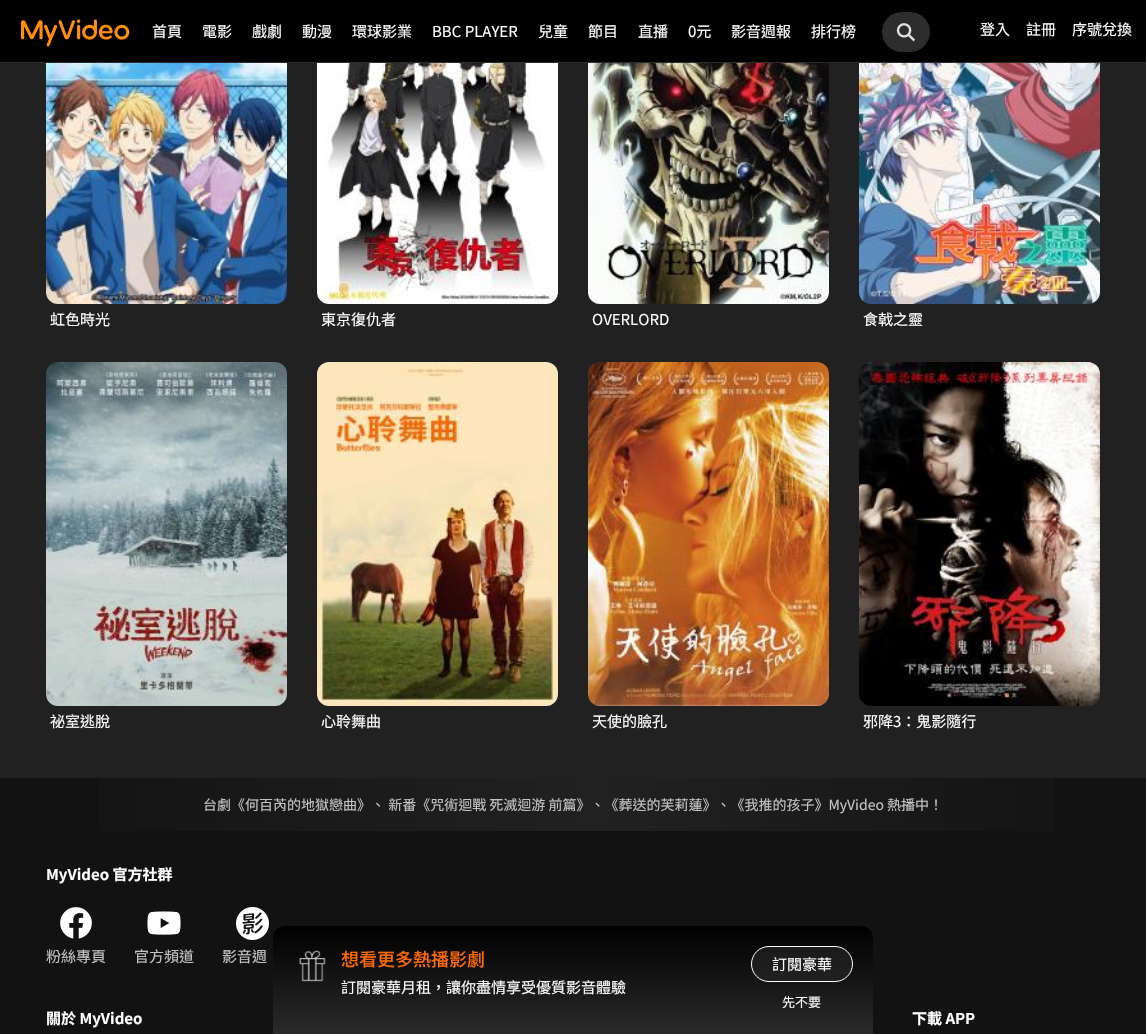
void draw(SkCanvas* canvas) {
  SkPaint paint;
  paint.setAntiAlias(true);
  auto face = [&](const char* family, int weight, float size, bool italic = false) {
    SkFontStyle style(weight, SkFontStyle::kNormal_Width,
      italic ? SkFontStyle::kItalic_Slant : SkFontStyle::kUpright_Slant);
    SkFont result(fontMgr->matchFamilyStyle(family, style), size);
    result.setSubpixel(true);
    return result;
  };
  auto paste = [&](const char* path, float x, float y, float w, float h) {
    auto image = SkImages::DeferredFromEncodedData(SkData::MakeFromFileName(path));
    canvas->drawImageRect(image, SkRect::MakeXYWH(x, y, w, h), SkSamplingOptions());
  };
  auto shape = [&](const char* data, bool evenOdd = false) {
    SkPath result = *SkParsePath::FromSVGString(data);
    if (evenOdd) result.setFillType(SkPathFillType::kEvenOdd);
    return result;
  };
  canvas->clear(0xff121212);
  paint.setColor(0xff000000);
  canvas->drawRect(SkRect::MakeXYWH(0, 0, 1146, 62), paint);
  paint.setColor(0xff2d2d2d);
  canvas->drawRect(SkRect::MakeXYWH(0, 62, 1146, 1), paint);
  paste("img/1.png", 21, 19, 109, 28);
  canvas->drawRoundRect(SkRect::MakeXYWH(882, 12, 48, 40), 20, 20, paint);
  paste("img/2.png", 896, 23, 19, 19);
  {
    const SkColor colors[] = {0xff282828, 0xff252525, 0xff232323, 0xff212121};
    const float stops[] = {0.18f, 0.23f, 0.3f, 0.44f};
    const SkPoint ends[] = {{573, -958}, {573, 778}};
    paint.setShader(SkGradientShader::MakeLinear(ends, colors, stops, 4, SkTileMode::kClamp));
    paint.setAlpha(255);
  }
  canvas->drawRect(SkRect::MakeXYWH(0, 63, 1146, 715), paint);
  paste("img/3.png", 46, 63, 241, 241);
  paste("img/4.png", 317, 63, 241, 241);
  paste("img/5.png", 588, 63, 241, 241);
  paste("img/6.png", 859, 63, 241, 241);
  paste("img/7.png", 46, 362, 241, 344);
  paste("img/8.png", 317, 362, 241, 344);
  paste("img/9.png", 588, 362, 241, 344);
  paste("img/10.png", 859, 362, 241, 344);
  {
    const SkColor colors[] = {0xff121212, 0xff212121, 0xff121212};
    const float stops[] = {0, 0.52f, 1};
    const SkPoint ends[] = {{0, 805}, {1146, 805}};
    paint.setShader(SkGradientShader::MakeLinear(ends, colors, stops, 3, SkTileMode::kClamp));
    paint.setAlpha(255);
  }
  canvas->drawRect(SkRect::MakeXYWH(99, 778, 955, 53), paint);
  paste("img/11.png", 60, 907, 32, 32);
  paste("img/12.png", 147, 911, 34, 24);
  paste("img/13.png", 236, 907, 33, 33);
  {
    const SkColor colors[] = {0xff000000, 0xff2a2a2a};
    const float stops[] = {0, 1};
    const SkPoint ends[] = {{573, 926}, {573, 1034}};
    paint.setShader(SkGradientShader::MakeLinear(ends, colors, stops, 2, SkTileMode::kClamp));
    paint.setAlpha(255);
  }
  canvas->drawPath(shape("M285 926H861C867.5 926 873 931.5 873 938V1034H273V938C273 931.5 278.5 926 285 926Z"), paint);
  paste("img/14.png", 299, 950, 27, 32);
  paint.setShader(nullptr);
  paint.setColor(0x99262626);
  canvas->drawRoundRect(SkRect::MakeXYWH(751.5f, 946.5f, 101, 35), 17.5f, 17.5f, paint);
  paint.setStroke(true);
  paint.setStrokeWidth(1);
  paint.setColor(0xffffffff);
  canvas->drawRoundRect(SkRect::MakeXYWH(751.5f, 946.5f, 101, 35), 17.5f, 17.5f, paint);
  auto f0 = face("Noto Sans TC", 400, 15);
  paint.setStroke(false);
  {
    const struct { const char* s; float x, y; } items[] = {
      {"首頁", 152, 37},
      {"電影", 202, 37},
      {"戲劇", 252, 37},
      {"動漫", 302, 37},
      {"環球影業", 352, 37},
      {"BBC PLAYER", 432, 37},
      {"兒童", 538, 37},
      {"節目", 588, 37},
      {"直播", 638, 37},
      {"0元", 688, 37},
      {"影音週報", 731, 37},
      {"排行榜", 811, 37},
      {"登入", 980, 35},
      {"註冊", 1026, 35},
      {"序號兌換", 1072, 35},
      {"虹色時光", 50, 325},
      {"東京復仇者", 321, 325},
      {"OVERLORD", 592, 325},
      {"食戟之靈", 863, 325},
      {"祕室逃脫", 50, 727},
      {"心聆舞曲", 321, 727},
      {"天使的臉孔", 592, 727},
      {"邪降3：鬼影隨行", 863, 727},
    };
    for (auto [s, x, y] : items) {
      canvas->drawString(s, x, y, f0, paint);
    }
  }
  auto f1 = face("Noto Sans TC", 400, 14);
  paint.setColor(0xffc4c4c4);
  canvas->drawString("台劇《何百芮的地獄戀曲》、 新番《咒術迴戰 死滅迴游 前篇》、《葬送的芙莉蓮》、《我推的孩子》MyVideo 熱播中！", 203, 810, f1, paint);
  auto f2 = face("Noto Sans TC", 700, 15);
  paint.setColor(0xffffffff);
  canvas->drawString("MyVideo 官方社群", 46, 880, f2, paint);
  paint.setColor(0xffc4c4c4);
  {
    const struct { const char* s; float x, y; } items[] = {
      {"粉絲專頁", 46, 962},
      {"官方頻道", 134, 962},
      {"影音週", 222, 962},
    };
    for (auto [s, x, y] : items) {
      canvas->drawString(s, x, y, f0, paint);
    }
  }
  paint.setColor(0xffffffff);
  canvas->drawString("關於 MyVideo", 46, 1024, f2, paint);
  canvas->drawString("下載 APP", 912, 1024, f2, paint);
  auto f3 = face("Noto Sans TC", 500, 18);
  paint.setColor(0xffff6b00);
  canvas->drawString("想看更多熱播影劇", 341, 966, f3, paint);
  paint.setColor(0xffffffff);
  canvas->drawString("訂閱豪華月租，讓你盡情享受優質影音體驗", 341, 993, f0, paint);
  canvas->drawString("訂閱豪華", 772, 970, f0, paint);
  auto f4 = face("Noto Sans TC", 400, 13);
  canvas->drawString("先不要", 782, 1007, f4, paint);
}
